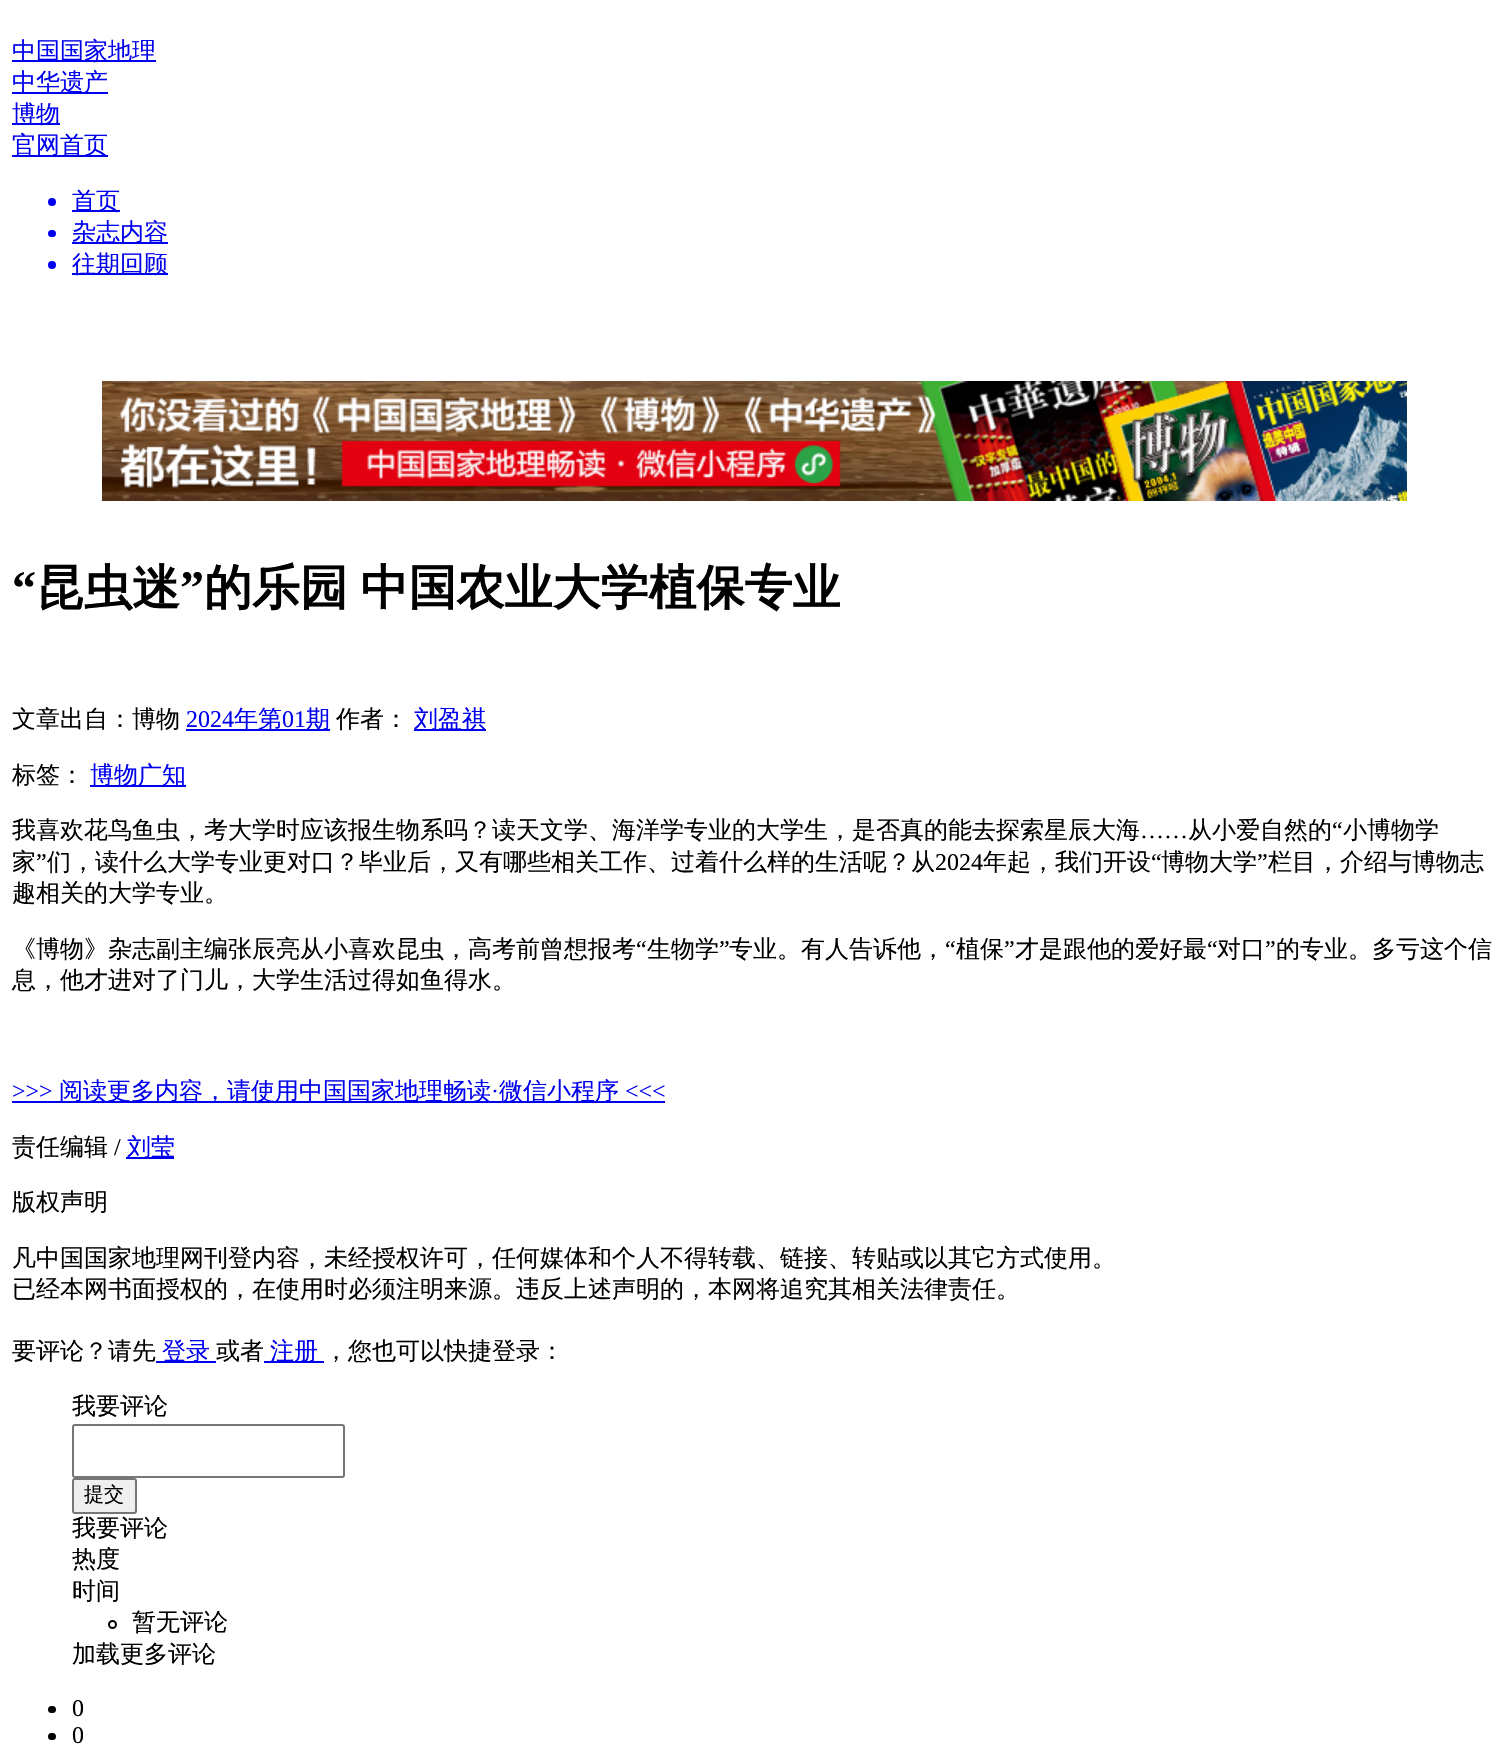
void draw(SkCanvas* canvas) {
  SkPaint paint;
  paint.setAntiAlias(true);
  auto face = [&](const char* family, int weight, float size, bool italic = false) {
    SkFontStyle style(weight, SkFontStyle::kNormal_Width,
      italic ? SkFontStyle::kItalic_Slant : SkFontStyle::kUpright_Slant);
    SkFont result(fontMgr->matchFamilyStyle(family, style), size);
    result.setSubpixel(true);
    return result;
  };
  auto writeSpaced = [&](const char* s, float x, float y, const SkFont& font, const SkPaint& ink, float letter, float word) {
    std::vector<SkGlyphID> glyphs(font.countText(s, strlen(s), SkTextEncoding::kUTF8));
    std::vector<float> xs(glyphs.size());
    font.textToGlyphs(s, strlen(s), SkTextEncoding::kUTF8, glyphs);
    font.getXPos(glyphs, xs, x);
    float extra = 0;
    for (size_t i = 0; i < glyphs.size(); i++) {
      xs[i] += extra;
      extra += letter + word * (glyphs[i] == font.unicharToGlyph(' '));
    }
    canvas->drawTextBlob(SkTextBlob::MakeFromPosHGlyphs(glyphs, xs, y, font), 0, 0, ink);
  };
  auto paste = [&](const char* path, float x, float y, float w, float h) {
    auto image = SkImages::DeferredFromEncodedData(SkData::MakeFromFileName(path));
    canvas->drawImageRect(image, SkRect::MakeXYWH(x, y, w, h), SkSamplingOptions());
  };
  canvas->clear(0xffffffff);
  {
    const struct { float x, y, w, h; SkColor color; } items[] = {
      {12, 60, 144, 2, 0xff0000ee},
      {12, 92, 96, 2, 0xff0000ee},
      {12, 123, 48, 2, 0xff0000ee},
      {12, 155, 96, 2, 0xff0000ee},
    };
    for (auto [x, y, w, h, color] : items) {
      paint.setColor(color);
      canvas->drawRect(SkRect::MakeXYWH(x, y, w, h), paint);
    }
  }
  canvas->drawCircle(52, 202, 4, paint);
  canvas->drawRect(SkRect::MakeXYWH(72, 210, 48, 2), paint);
  canvas->drawRoundRect(SkRect::MakeXYWH(48, 230, 8, 7), 3.5f, 3.5f, paint);
  canvas->drawRect(SkRect::MakeXYWH(72, 242, 96, 2), paint);
  canvas->drawCircle(52, 265, 4, paint);
  canvas->drawRect(SkRect::MakeXYWH(72, 273, 96, 2), paint);
  paste("img/1.png", 102, 381, 1305, 120);
  {
    const struct { float x, y, w, h; SkColor color; } items[] = {
      {186, 729, 144, 2, 0xff0000ee},
      {414, 729, 72, 2, 0xff0000ee},
      {90, 785, 96, 2, 0xff0000ee},
      {12, 1101, 653, 2, 0xff0000ee},
      {126, 1157, 48, 2, 0xff0000ee},
      {156, 1361, 60, 2, 0xff0000ee},
      {264, 1361, 60, 2, 0xff0000ee},
    };
    for (auto [x, y, w, h, color] : items) {
      paint.setColor(color);
      canvas->drawRect(SkRect::MakeXYWH(x, y, w, h), paint);
    }
  }
  paint.setStroke(true);
  paint.setStrokeWidth(2);
  paint.setColor(0xff767676);
  canvas->drawRoundRect(SkRect::MakeXYWH(73, 1425, 271, 52), 2, 2, paint);
  paint.setStroke(false);
  paint.setColor(0xffefefef);
  canvas->drawRoundRect(SkRect::MakeXYWH(73, 1479, 63, 34), 2, 2, paint);
  paint.setStroke(true);
  paint.setColor(0xff767676);
  canvas->drawRoundRect(SkRect::MakeXYWH(73, 1479, 63, 34), 2, 2, paint);
  paint.setColor(0xff000000);
  canvas->drawCircle(112.5f, 1624.5f, 3.5f, paint);
  paint.setStroke(false);
  canvas->drawRoundRect(SkRect::MakeXYWH(48, 1706, 8, 7), 3.5f, 3.5f, paint);
  canvas->drawRoundRect(SkRect::MakeXYWH(48, 1733, 8, 7), 3.5f, 3.5f, paint);
  auto f0 = face("WenQuanYi Zen Hei", 500, 24);
  paint.setColor(0xff0000ee);
  {
    const struct { const char* s; float x, y; } items[] = {
      {"中国国家地理", 12, 59},
      {"中华遗产", 12, 90},
      {"博物", 12, 122},
      {"官网首页", 12, 153},
      {"首页", 72, 209},
      {"杂志内容", 72, 240},
      {"往期回顾", 72, 272},
    };
    for (auto [s, x, y] : items) {
      canvas->drawString(s, x, y, f0, paint);
    }
  }
  auto f1 = face("Liberation Serif", 700, 48);
  paint.setColor(0xff000000);
  canvas->drawString("“", 12, 604, f1, paint);
  auto f2 = face("WenQuanYi Zen Hei", 700, 48);
  canvas->drawString("昆虫迷", 36, 604, f2, paint);
  canvas->drawString("”", 180, 604, f1, paint);
  writeSpaced("的乐园 中国农业大学植保专业", 204, 604, f2, paint, 0, -2);
  canvas->drawString("文章出自：博物", 12, 727, f0, paint);
  auto f3 = face("Liberation Serif", 400, 24);
  paint.setColor(0xff0000ee);
  canvas->drawString("2024", 186, 727, f3, paint);
  canvas->drawString("年第", 234, 727, f0, paint);
  canvas->drawString("01", 282, 727, f3, paint);
  canvas->drawString("期", 306, 727, f0, paint);
  paint.setColor(0xff000000);
  canvas->drawString("作者：", 336, 727, f0, paint);
  paint.setColor(0xff0000ee);
  canvas->drawString("刘盈祺", 414, 727, f0, paint);
  paint.setColor(0xff000000);
  canvas->drawString("标签：", 12, 783, f0, paint);
  paint.setColor(0xff0000ee);
  canvas->drawString("博物广知", 90, 783, f0, paint);
  paint.setColor(0xff000000);
  canvas->drawString("我喜欢花鸟鱼虫，考大学时应该报生物系吗？读天文学、海洋学专业的大学生，是否真的能去探索星辰大海", 12, 838, f0, paint);
  canvas->drawString("从小爱自然的", 1188, 838, f0, paint);
  canvas->drawString("“", 1332, 838, f3, paint);
  canvas->drawString("小博物学", 1343, 838, f0, paint);
  canvas->drawString("……", 1140, 838, f3, paint);
  canvas->drawString("家", 12, 870, f0, paint);
  canvas->drawString("”", 36, 870, f3, paint);
  canvas->drawString("们，读什么大学专业更对口？毕业后，又有哪些相关工作、过着什么样的生活呢？从", 47, 870, f0, paint);
  canvas->drawString("2024", 935, 870, f3, paint);
  canvas->drawString("年起，我们开设", 983, 870, f0, paint);
  canvas->drawString("“", 1151, 870, f3, paint);
  canvas->drawString("博物大学", 1161, 870, f0, paint);
  canvas->drawString("”", 1257, 870, f3, paint);
  {
    const struct { const char* s; float x, y; } items[] = {
      {"栏目，介绍与博物志", 1268, 870},
      {"趣相关的大学专业。", 12, 901},
      {"《博物》杂志副主编张辰亮从小喜欢昆虫，高考前曾想报考", 12, 957},
    };
    for (auto [s, x, y] : items) {
      canvas->drawString(s, x, y, f0, paint);
    }
  }
  canvas->drawString("“", 636, 957, f3, paint);
  canvas->drawString("生物学", 647, 957, f0, paint);
  canvas->drawString("”", 719, 957, f3, paint);
  canvas->drawString("专业。有人告诉他，", 729, 957, f0, paint);
  canvas->drawString("“", 945, 957, f3, paint);
  canvas->drawString("植保", 956, 957, f0, paint);
  canvas->drawString("”", 1004, 957, f3, paint);
  canvas->drawString("才是跟他的爱好最", 1015, 957, f0, paint);
  canvas->drawString("“", 1207, 957, f3, paint);
  canvas->drawString("对口", 1217, 957, f0, paint);
  canvas->drawString("”", 1265, 957, f3, paint);
  canvas->drawString("的专业。多亏这个信", 1276, 957, f0, paint);
  canvas->drawString("息，他才进对了门儿，大学生活过得如鱼得水。", 12, 988, f0, paint);
  paint.setColor(0xff0000ee);
  canvas->drawString(">>>", 12, 1099, f3, paint);
  canvas->drawString("阅读更多内容，请使用中国国家地理畅读", 59, 1099, f0, paint);
  canvas->drawString("·", 491, 1099, f3, paint);
  canvas->drawString("微信小程序", 499, 1099, f0, paint);
  canvas->drawString("<<<", 625, 1099, f3, paint);
  paint.setColor(0xff000000);
  canvas->drawString("责任编辑", 12, 1155, f0, paint);
  canvas->drawString("/", 114, 1155, f3, paint);
  paint.setColor(0xff0000ee);
  canvas->drawString("刘莹", 127, 1155, f0, paint);
  paint.setColor(0xff000000);
  {
    const struct { const char* s; float x, y; } items[] = {
      {"版权声明", 12, 1210},
      {"凡中国国家地理网刊登内容，未经授权许可，任何媒体和个人不得转载、链接、转贴或以其它方式使用。", 12, 1266},
      {"已经本网书面授权的，在使用时必须注明来源。违反上述声明的，本网将追究其相关法律责任。", 12, 1297},
      {"要评论？请先", 12, 1359},
    };
    for (auto [s, x, y] : items) {
      canvas->drawString(s, x, y, f0, paint);
    }
  }
  paint.setColor(0xff0000ee);
  canvas->drawString("登录", 162, 1359, f0, paint);
  paint.setColor(0xff000000);
  canvas->drawString("或者", 216, 1359, f0, paint);
  paint.setColor(0xff0000ee);
  canvas->drawString("注册", 270, 1359, f0, paint);
  paint.setColor(0xff000000);
  canvas->drawString("，您也可以快捷登录：", 324, 1359, f0, paint);
  canvas->drawString("我要评论", 72, 1414, f0, paint);
  auto f4 = face("WenQuanYi Zen Hei", 500, 20);
  canvas->drawString("提交", 84, 1501, f4, paint);
  {
    const struct { const char* s; float x, y; } items[] = {
      {"我要评论", 72, 1536},
      {"热度", 72, 1567},
      {"时间", 72, 1599},
      {"暂无评论", 132, 1630},
      {"加载更多评论", 72, 1662},
    };
    for (auto [s, x, y] : items) {
      canvas->drawString(s, x, y, f0, paint);
    }
  }
  canvas->drawString("0", 72, 1716, f3, paint);
  canvas->drawString("0", 72, 1743, f3, paint);
}
